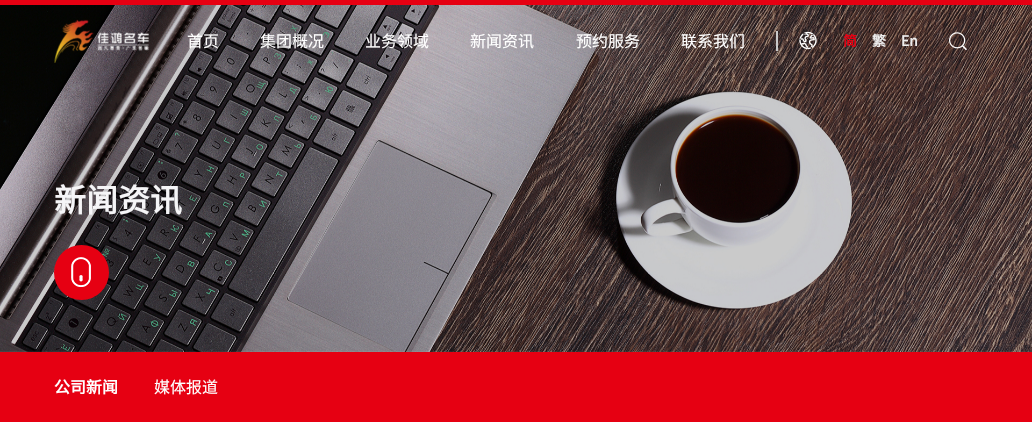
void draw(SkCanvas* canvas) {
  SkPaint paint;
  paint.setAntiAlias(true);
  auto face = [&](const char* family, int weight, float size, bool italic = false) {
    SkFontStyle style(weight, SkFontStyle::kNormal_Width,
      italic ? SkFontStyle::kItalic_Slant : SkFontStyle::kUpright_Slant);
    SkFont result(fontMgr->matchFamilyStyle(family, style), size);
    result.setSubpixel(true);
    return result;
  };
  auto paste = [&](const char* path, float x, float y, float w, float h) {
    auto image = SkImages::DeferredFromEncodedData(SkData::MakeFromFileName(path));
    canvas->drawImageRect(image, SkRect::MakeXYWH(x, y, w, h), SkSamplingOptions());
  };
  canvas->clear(0xffffffff);
  paint.setColor(0xffe60012);
  canvas->drawRect(SkRect::MakeXYWH(0, 0, 1032, 5), paint);
  paste("img/4.png", 0, 5, 1032, 347);
  paste("img/1.png", 54, 19, 95, 44);
  paint.setColor(0xffc9c9c9);
  canvas->drawRect(SkRect::MakeXYWH(776, 31, 2, 20), paint);
  paste("img/2.png", 799, 31, 18, 19);
  paste("img/3.png", 949, 32, 18, 19);
  paint.setColor(0xffe60012);
  canvas->drawCircle(81.5f, 272.5f, 27.5f, paint);
  paste("img/5.png", 71, 257, 20, 30);
  canvas->drawRect(SkRect::MakeXYWH(0, 352, 1032, 70), paint);
  auto f0 = face("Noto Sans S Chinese", 400, 16);
  paint.setColor(0xffffffff);
  {
    const struct { const char* s; float x, y; } items[] = {
      {"首页", 187, 47},
      {"集团概况", 260, 47},
      {"业务领域", 365, 47},
      {"新闻资讯", 470, 47},
      {"预约服务", 576, 47},
      {"联系我们", 681, 47},
    };
    for (auto [s, x, y] : items) {
      canvas->drawString(s, x, y, f0, paint);
    }
  }
  auto f1 = face("Noto Sans S Chinese", 700, 14);
  paint.setColor(0xffe60012);
  canvas->drawString("简", 843, 46, f1, paint);
  paint.setColor(0xffeeeeee);
  canvas->drawString("繁", 872, 46, f1, paint);
  canvas->drawString("En", 901, 46, f1, paint);
  auto f2 = face("Noto Sans S Chinese", 700, 32);
  paint.setColor(0xfff5f5f7);
  canvas->drawString("新闻资讯", 54, 212, f2, paint);
  auto f3 = face("Noto Sans S Chinese", 700, 16);
  paint.setColor(0xffffffff);
  canvas->drawString("公司新闻", 54, 393, f3, paint);
  canvas->drawString("媒体报道", 154, 393, f0, paint);
}
